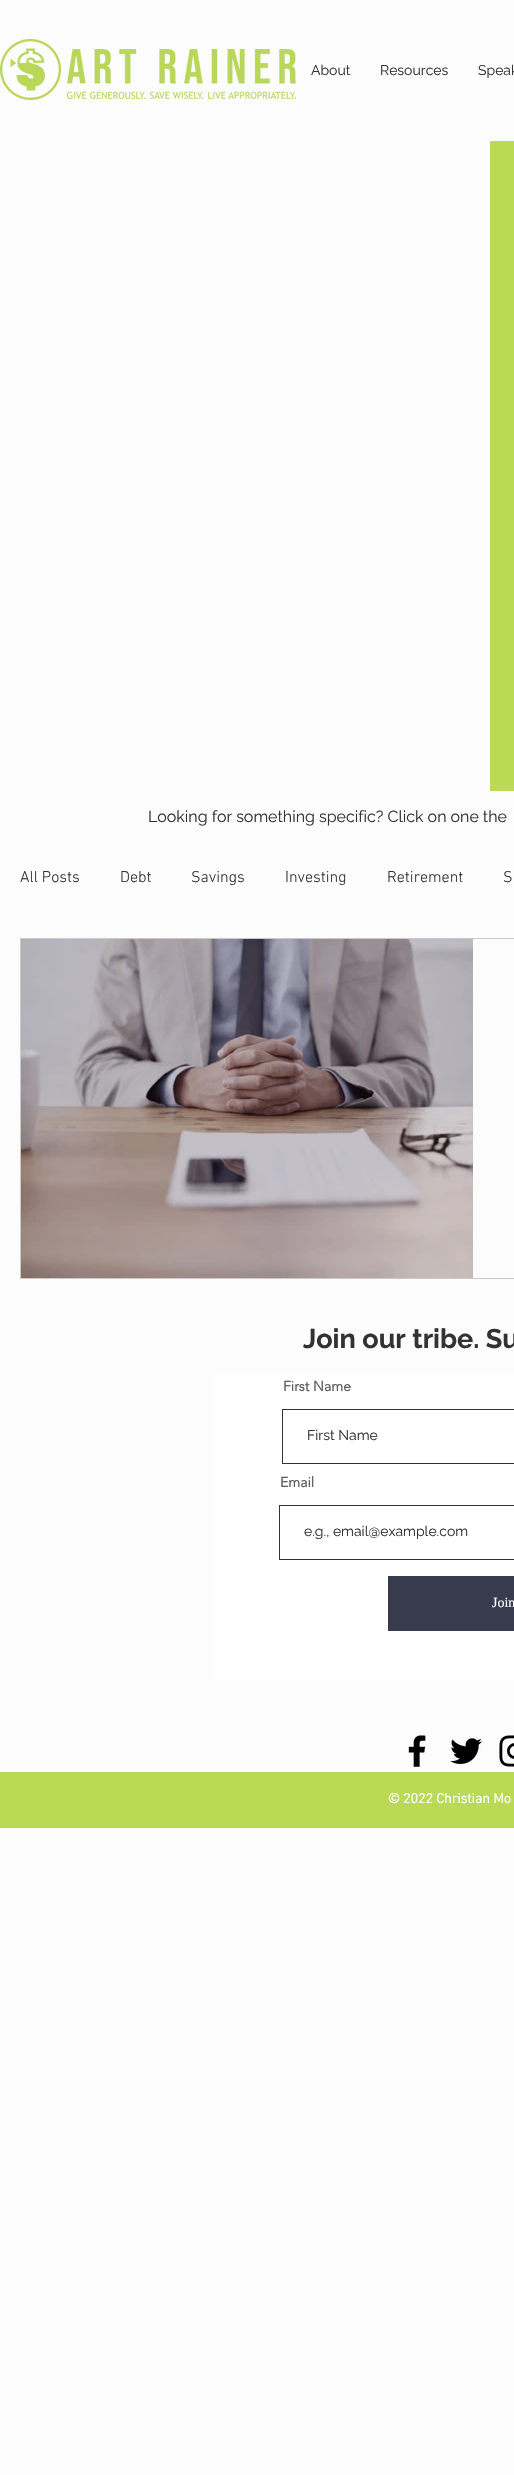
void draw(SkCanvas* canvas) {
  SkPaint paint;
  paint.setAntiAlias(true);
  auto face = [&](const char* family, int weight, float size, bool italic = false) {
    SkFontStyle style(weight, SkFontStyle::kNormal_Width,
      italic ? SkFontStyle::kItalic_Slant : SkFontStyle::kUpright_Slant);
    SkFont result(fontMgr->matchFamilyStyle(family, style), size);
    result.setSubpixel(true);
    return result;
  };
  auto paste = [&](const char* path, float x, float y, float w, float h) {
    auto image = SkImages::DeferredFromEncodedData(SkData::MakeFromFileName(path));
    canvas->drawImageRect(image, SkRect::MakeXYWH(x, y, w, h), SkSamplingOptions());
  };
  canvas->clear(0xfffcfcfc);
  paste("img/1.png", 0, 39, 61, 61);
  paste("img/2.png", 67, 49, 229, 50);
  paint.setColor(0xffbada55);
  canvas->drawRect(SkRect::MakeXYWH(490, 141, 24, 650), paint);
  paint.setStroke(true);
  paint.setStrokeWidth(1);
  paint.setColor(0xffcacaca);
  canvas->drawRect(SkRect::MakeXYWH(20.5f, 938.5f, 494, 340), paint);
  paste("img/3.png", 21, 939, 452, 339);
  paint.setStroke(false);
  paint.setColor(0xffffffff);
  canvas->drawRect(SkRect::MakeXYWH(212, 1374, 302, 306), paint);
  paint.setStroke(true);
  paint.setColor(0xff333333);
  canvas->drawRect(SkRect::MakeXYWH(282.5f, 1409.5f, 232, 54), paint);
  canvas->drawRect(SkRect::MakeXYWH(279.5f, 1505.5f, 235, 54), paint);
  paint.setStroke(false);
  paint.setColor(0xff373b4d);
  canvas->drawRect(SkRect::MakeXYWH(388, 1576, 126, 55), paint);
  paste("img/4.png", 408, 1735, 18, 32);
  paste("img/5.png", 450, 1738, 32, 27);
  paste("img/6.png", 499, 1735, 15, 32);
  paint.setColor(0xffbada55);
  canvas->drawRect(SkRect::MakeXYWH(0, 1772, 514, 56), paint);
  auto f0 = face("Raleway", 400, 14);
  paint.setColor(0xff323232);
  {
    const struct { const char* s; float x, y; } items[] = {
      {"About", 311, 75},
      {"Resources", 380, 75},
      {"Speak", 478, 75},
    };
    for (auto [s, x, y] : items) {
      canvas->drawString(s, x, y, f0, paint);
    }
  }
  auto f1 = face("Raleway", 400, 16);
  canvas->drawString("Looking for something specific? Click on one the", 148, 822, f1, paint);
  auto f2 = face("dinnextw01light", 300, 16);
  {
    const struct { const char* s; float x, y; } items[] = {
      {"All Posts", 20, 882},
      {"Debt", 120, 882},
      {"Savings", 191, 882},
      {"Investing", 285, 882},
      {"Retirement", 387, 882},
      {"S", 503, 882},
    };
    for (auto [s, x, y] : items) {
      canvas->drawString(s, x, y, f2, paint);
    }
  }
  auto f3 = face("Raleway", 700, 27);
  canvas->drawString("Join our tribe. Su", 303, 1348, f3, paint);
  auto f4 = face("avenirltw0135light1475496", 700, 14);
  paint.setColor(0xff61615f);
  canvas->drawString("First Name", 283, 1391, f4, paint);
  paint.setColor(0xff323232);
  canvas->drawString("First Name", 307, 1440, f0, paint);
  paint.setColor(0xff61615f);
  canvas->drawString("Email", 280, 1487, f4, paint);
  paint.setColor(0xff323232);
  canvas->drawString("e.g., email@example.com", 304, 1536, f0, paint);
  auto f5 = face("Liberation Serif", 400, 14);
  paint.setColor(0xfffcfcfc);
  canvas->drawString("Join", 492, 1607, f5, paint);
  auto f6 = face("dinnextw01light", 700, 14);
  canvas->drawString("© 2022 Christian Mo", 388, 1803, f6, paint);
}
